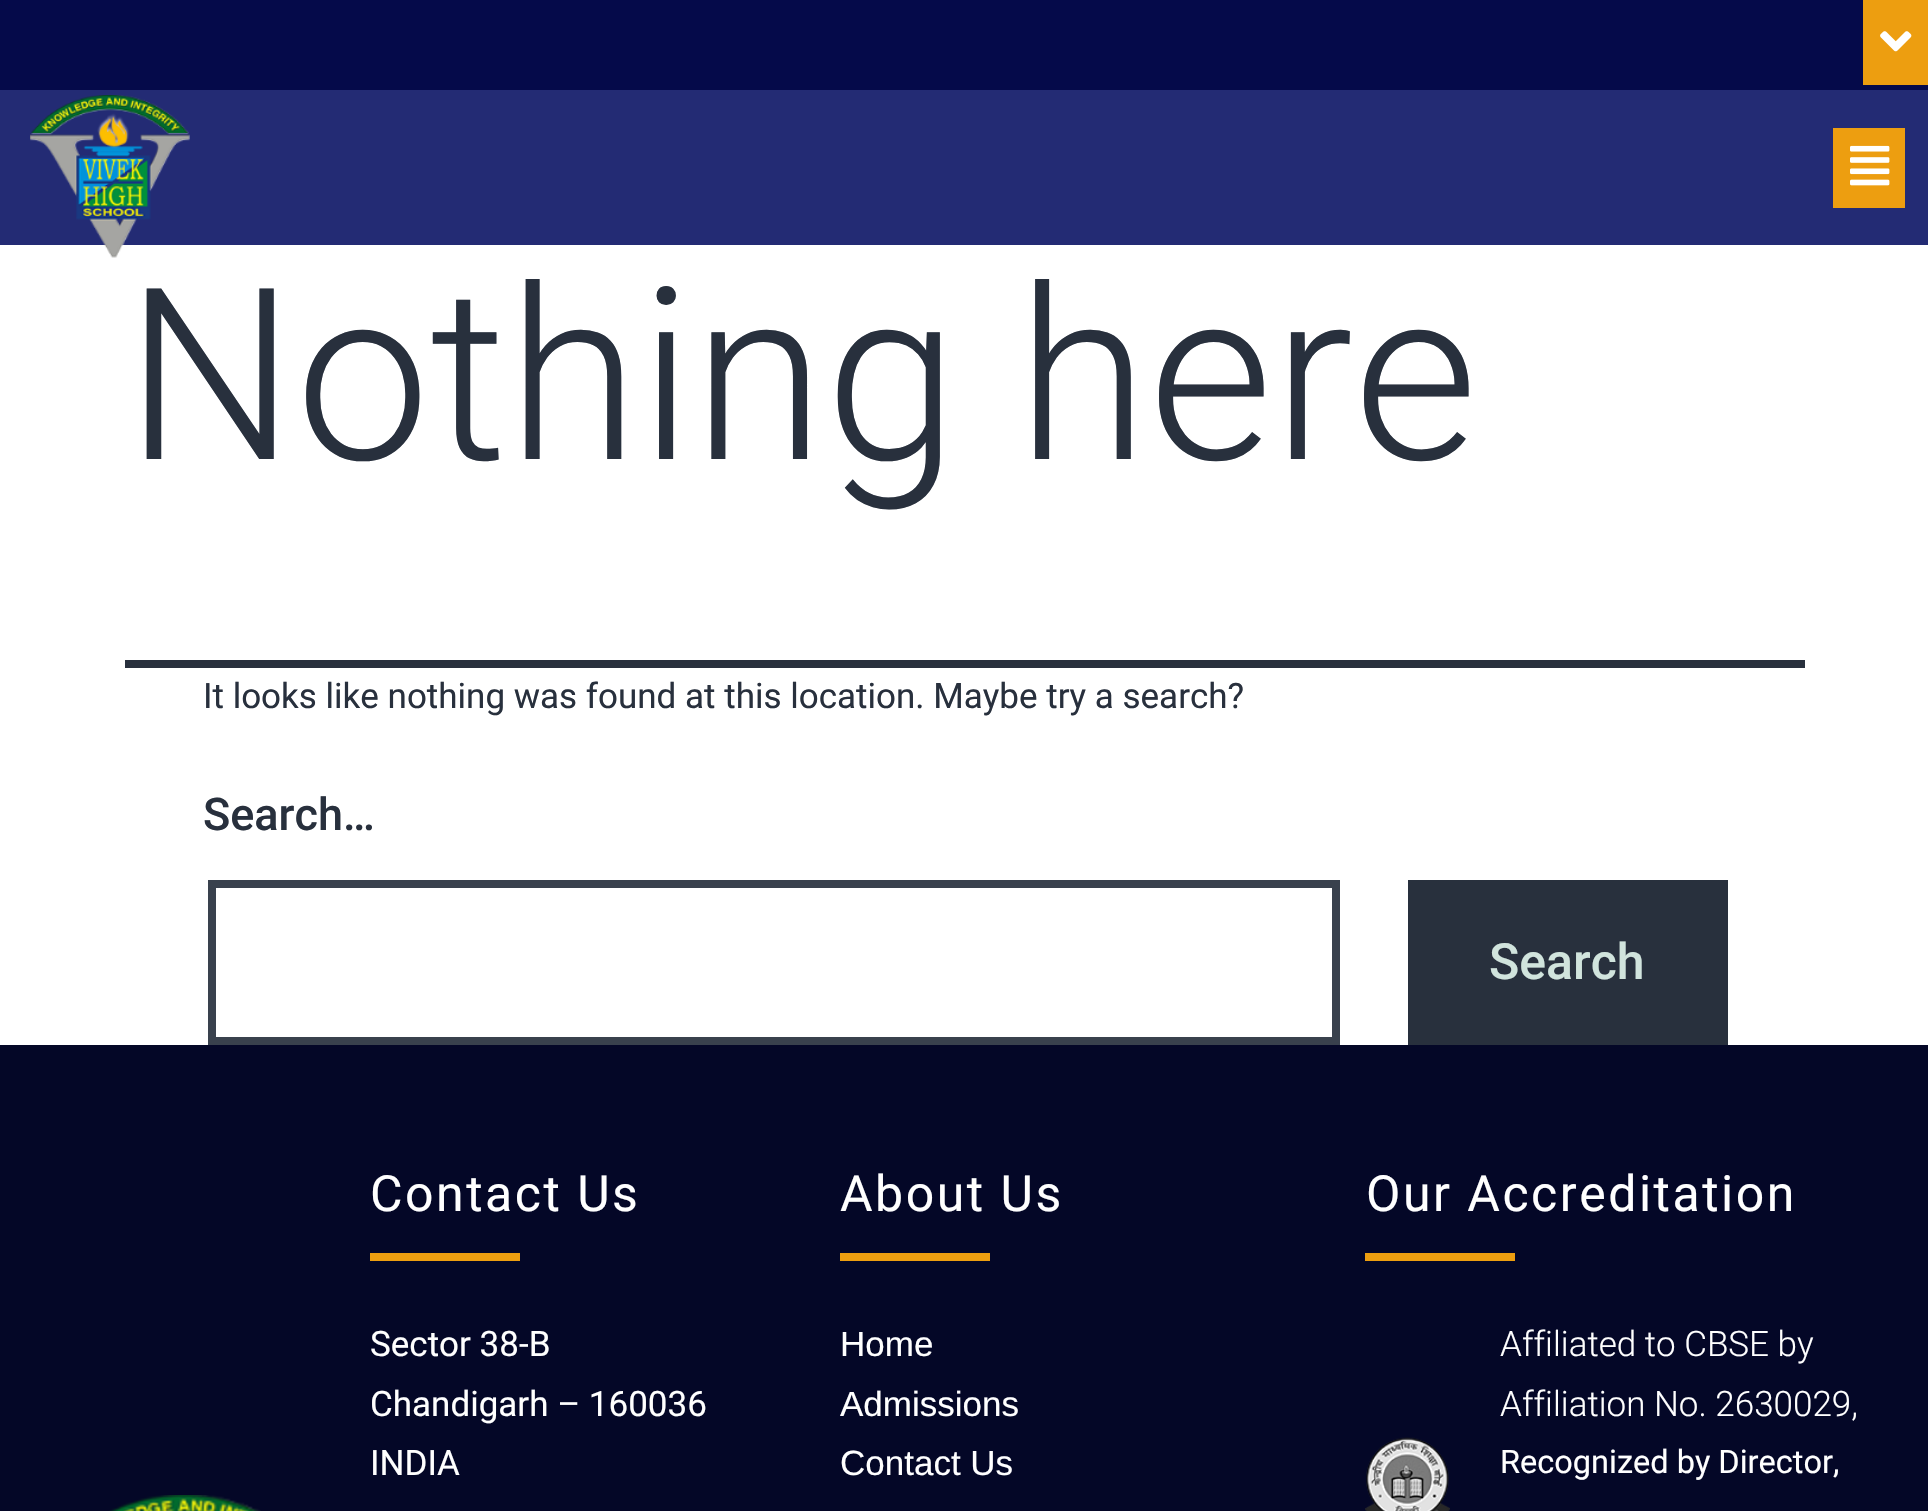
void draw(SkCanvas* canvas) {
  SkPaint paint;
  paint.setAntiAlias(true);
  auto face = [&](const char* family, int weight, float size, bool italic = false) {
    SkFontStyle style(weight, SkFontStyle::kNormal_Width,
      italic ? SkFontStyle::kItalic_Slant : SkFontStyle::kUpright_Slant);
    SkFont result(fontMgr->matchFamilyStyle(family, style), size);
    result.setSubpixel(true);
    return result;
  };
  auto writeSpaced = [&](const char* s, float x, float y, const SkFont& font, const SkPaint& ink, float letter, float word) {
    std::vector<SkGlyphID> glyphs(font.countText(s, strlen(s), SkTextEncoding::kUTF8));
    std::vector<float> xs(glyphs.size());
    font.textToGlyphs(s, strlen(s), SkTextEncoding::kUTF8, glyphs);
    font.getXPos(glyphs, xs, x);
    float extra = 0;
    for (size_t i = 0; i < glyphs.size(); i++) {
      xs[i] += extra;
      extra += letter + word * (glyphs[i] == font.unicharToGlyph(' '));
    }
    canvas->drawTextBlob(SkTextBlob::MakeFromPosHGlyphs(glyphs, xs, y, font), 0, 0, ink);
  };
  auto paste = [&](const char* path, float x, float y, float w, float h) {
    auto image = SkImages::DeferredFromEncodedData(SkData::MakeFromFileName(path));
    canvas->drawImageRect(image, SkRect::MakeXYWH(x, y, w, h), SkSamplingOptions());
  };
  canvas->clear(0xffffffff);
  paint.setColor(0xff050a4a);
  canvas->drawRect(SkRect::MakeXYWH(0, 0, 1928, 90), paint);
  paint.setColor(0xffed9e10);
  canvas->drawRect(SkRect::MakeXYWH(1863, 0, 65, 85), paint);
  paste("img/1.png", 1880, 31, 32, 21);
  paint.setColor(0xff232b74);
  canvas->drawRect(SkRect::MakeXYWH(0, 90, 1928, 155), paint);
  paste("img/2.png", 30, 95, 160, 163);
  paint.setColor(0xffed9e10);
  canvas->drawRect(SkRect::MakeXYWH(1833, 128, 72, 80), paint);
  paste("img/3.png", 1850, 145, 40, 41);
  paint.setColor(0xff28303d);
  canvas->drawRect(SkRect::MakeXYWH(125, 660, 1680, 8), paint);
  paint.setStroke(true);
  paint.setStrokeWidth(8);
  paint.setColor(0xff39414d);
  canvas->drawRect(SkRect::MakeXYWH(212, 884, 1124, 157), paint);
  paint.setStroke(false);
  {
    const struct { float x, y, w, h; SkColor color; } items[] = {
      {1408, 880, 320, 165, 0xff28303d},
      {0, 1045, 1928, 466, 0xff040727},
      {370, 1253, 150, 8, 0xffed9e10},
      {840, 1253, 150, 8, 0xffed9e10},
      {1365, 1253, 150, 8, 0xffed9e10},
    };
    for (auto [x, y, w, h, color] : items) {
      paint.setColor(color);
      canvas->drawRect(SkRect::MakeXYWH(x, y, w, h), paint);
    }
  }
  paste("img/4.png", 1365, 1437, 85, 74);
  paste("img/5.png", 109, 1495, 152, 16);
  auto f0 = face("Roboto", 300, 240);
  paint.setColor(0xff28303d);
  canvas->drawString("Nothing here", 125, 459, f0, paint);
  auto f1 = face("Roboto", 400, 35);
  canvas->drawString("It looks like nothing was found at this location. Maybe try a search?", 203, 708, f1, paint);
  auto f2 = face("Roboto", 500, 45);
  canvas->drawString("Search…", 203, 830, f2, paint);
  auto f3 = face("Roboto", 500, 50);
  paint.setColor(0xffd1e4dd);
  canvas->drawString("Search", 1489, 979, f3, paint);
  auto f4 = face("Roboto", 400, 50);
  paint.setColor(0xffffffff);
  writeSpaced("Contact Us", 370, 1211, f4, paint, 2.5f, 0);
  {
    const struct { const char* s; float x, y; } items[] = {
      {"Sector 38-B", 370, 1356},
      {"Chandigarh – 160036", 370, 1416},
      {"INDIA", 370, 1475},
    };
    for (auto [s, x, y] : items) {
      canvas->drawString(s, x, y, f1, paint);
    }
  }
  writeSpaced("About Us", 840, 1211, f4, paint, 2.5f, 0);
  auto f5 = face("Liberation Sans", 400, 35);
  {
    const struct { const char* s; float x, y; } items[] = {
      {"Home", 840, 1356},
      {"Admissions", 840, 1416},
      {"Contact Us", 840, 1475},
    };
    for (auto [s, x, y] : items) {
      canvas->drawString(s, x, y, f5, paint);
    }
  }
  writeSpaced("Our Accreditation", 1366, 1211, f4, paint, 2.5f, 0);
  auto f6 = face("Roboto", 300, 35);
  canvas->drawString("Affiliated to CBSE by", 1500, 1356, f6, paint);
  canvas->drawString("Affiliation No. 2630029,", 1500, 1416, f6, paint);
  auto f7 = face("Roboto", 400, 32.5f);
  canvas->drawString("Recognized by Director,", 1500, 1473, f7, paint);
}
